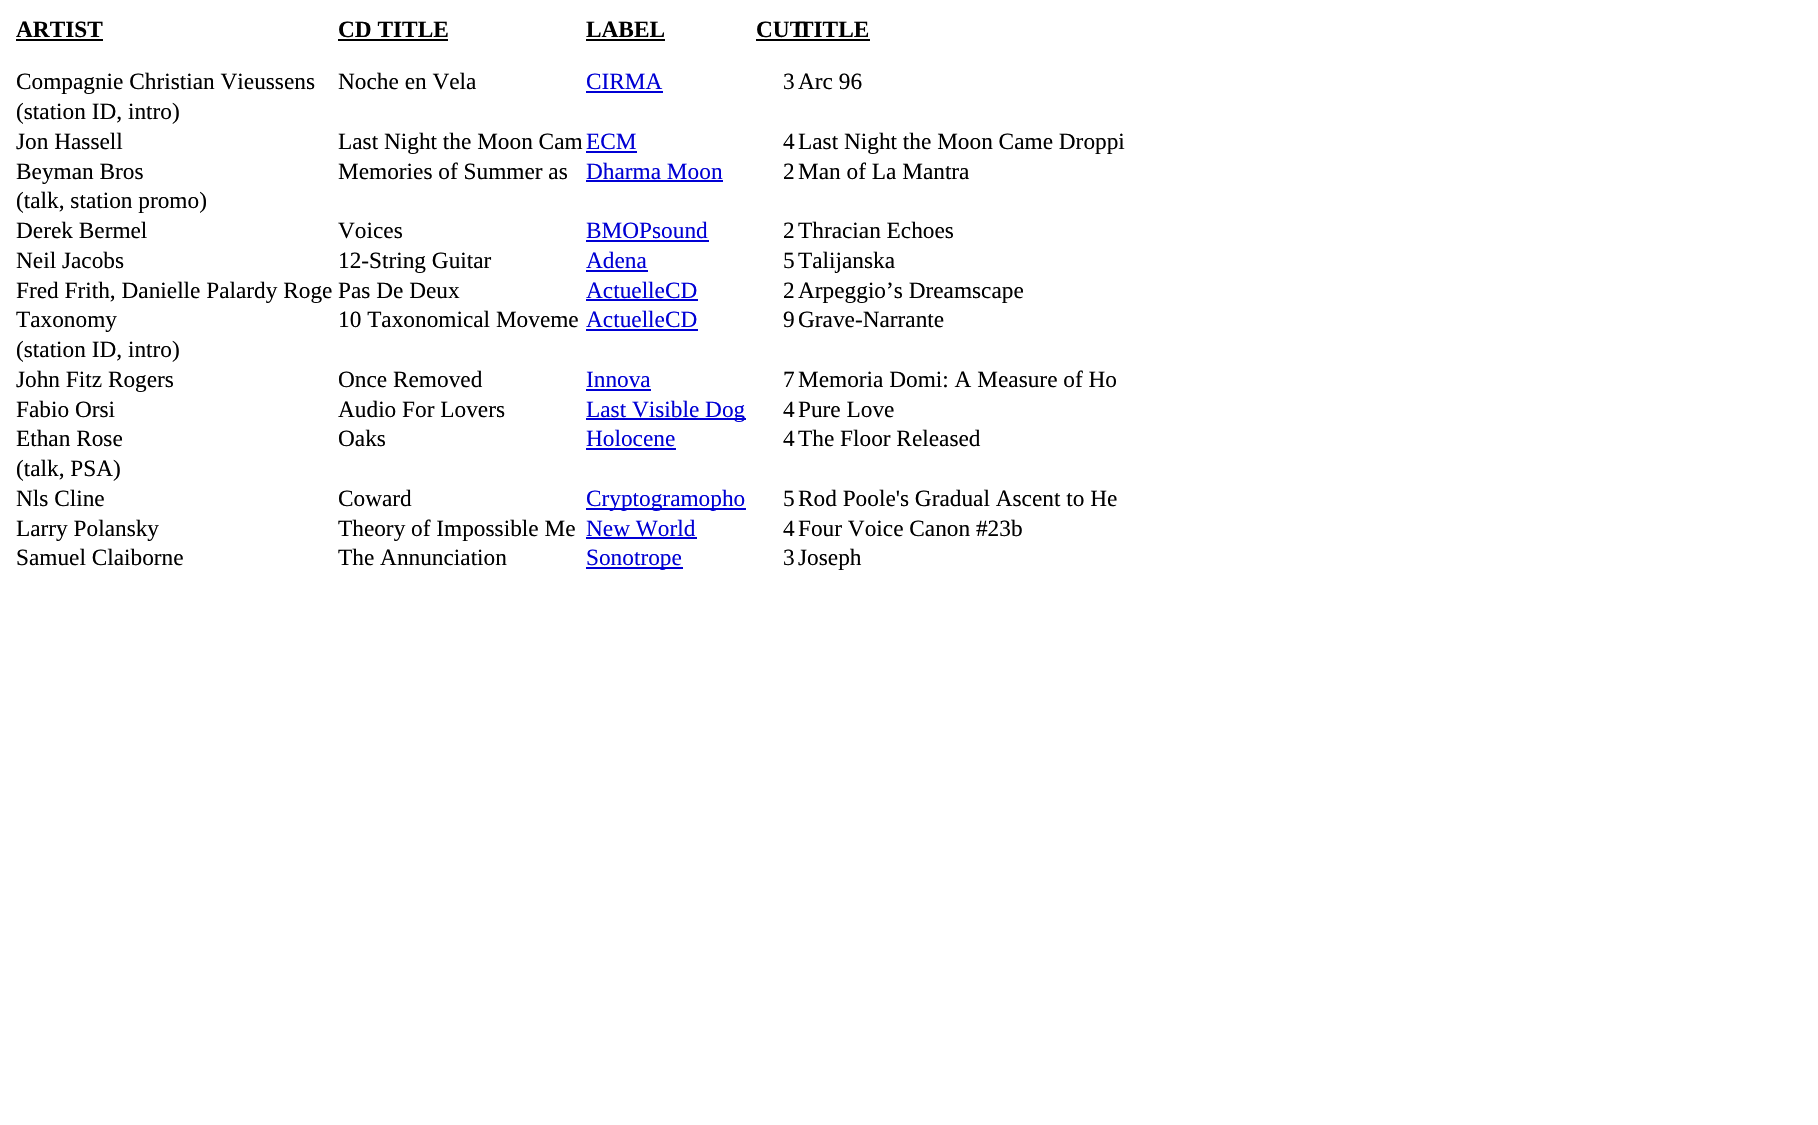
void draw(SkCanvas* canvas) {
  SkPaint paint;
  paint.setAntiAlias(true);
  auto face = [&](const char* family, int weight, float size, bool italic = false) {
    SkFontStyle style(weight, SkFontStyle::kNormal_Width,
      italic ? SkFontStyle::kItalic_Slant : SkFontStyle::kUpright_Slant);
    SkFont result(fontMgr->matchFamilyStyle(family, style), size);
    result.setSubpixel(true);
    return result;
  };
  canvas->clear(0xffffffff);
  {
    const struct { float x, y, w, h; SkColor color; } items[] = {
      {16, 39, 87, 2, 0xff000000},
      {338, 39, 110, 2, 0xff000000},
      {586, 39, 79, 2, 0xff000000},
      {756, 39, 114, 2, 0xff000000},
      {586, 91, 77, 2, 0xff0000d4},
      {586, 151, 51, 2, 0xff0000d4},
      {586, 180, 137, 2, 0xff0000d4},
      {586, 240, 123, 2, 0xff0000d4},
      {586, 270, 62, 2, 0xff0000d4},
      {586, 299, 112, 2, 0xff0000d4},
      {586, 329, 112, 2, 0xff0000d4},
      {586, 389, 65, 2, 0xff0000d4},
      {586, 418, 160, 2, 0xff0000d4},
      {586, 448, 90, 2, 0xff0000d4},
      {586, 508, 160, 2, 0xff0000d4},
      {586, 537, 111, 2, 0xff0000d4},
      {586, 567, 97, 2, 0xff0000d4},
    };
    for (auto [x, y, w, h, color] : items) {
      paint.setColor(color);
      canvas->drawRect(SkRect::MakeXYWH(x, y, w, h), paint);
    }
  }
  auto f0 = face("Liberation Serif", 700, 23.3f);
  paint.setColor(0xff000000);
  {
    const struct { const char* s; float x, y; } items[] = {
      {"ARTIST", 16, 37},
      {"CD TITLE", 338, 37},
      {"LABEL", 586, 37},
      {"CUT", 756, 37},
      {"TITLE", 798, 37},
    };
    for (auto [s, x, y] : items) {
      canvas->drawString(s, x, y, f0, paint);
    }
  }
  auto f1 = face("Liberation Serif", 400, 23.3f);
  canvas->drawString("Compagnie Christian Vieussens", 16, 89, f1, paint);
  canvas->drawString("Noche en Vela", 338, 89, f1, paint);
  paint.setColor(0xff0000d4);
  canvas->drawString("CIRMA", 586, 89, f1, paint);
  paint.setColor(0xff000000);
  {
    const struct { const char* s; float x, y; } items[] = {
      {"3", 783, 89},
      {"Arc 96", 798, 89},
      {"(station ID, intro)", 16, 119},
      {"Jon Hassell", 16, 149},
      {"Last Night the Moon Cam", 338, 149},
    };
    for (auto [s, x, y] : items) {
      canvas->drawString(s, x, y, f1, paint);
    }
  }
  paint.setColor(0xff0000d4);
  canvas->drawString("ECM", 586, 149, f1, paint);
  paint.setColor(0xff000000);
  {
    const struct { const char* s; float x, y; } items[] = {
      {"4", 783, 149},
      {"Last Night the Moon Came Droppi", 798, 149},
      {"Beyman Bros", 16, 179},
      {"Memories of Summer as", 338, 179},
    };
    for (auto [s, x, y] : items) {
      canvas->drawString(s, x, y, f1, paint);
    }
  }
  paint.setColor(0xff0000d4);
  canvas->drawString("Dharma Moon", 586, 179, f1, paint);
  paint.setColor(0xff000000);
  {
    const struct { const char* s; float x, y; } items[] = {
      {"2", 783, 179},
      {"Man of La Mantra", 798, 179},
      {"(talk, station promo)", 16, 208},
      {"Derek Bermel", 16, 238},
      {"Voices", 338, 238},
    };
    for (auto [s, x, y] : items) {
      canvas->drawString(s, x, y, f1, paint);
    }
  }
  paint.setColor(0xff0000d4);
  canvas->drawString("BMOPsound", 586, 238, f1, paint);
  paint.setColor(0xff000000);
  {
    const struct { const char* s; float x, y; } items[] = {
      {"2", 783, 238},
      {"Thracian Echoes", 798, 238},
      {"Neil Jacobs", 16, 268},
      {"12-String Guitar", 338, 268},
    };
    for (auto [s, x, y] : items) {
      canvas->drawString(s, x, y, f1, paint);
    }
  }
  paint.setColor(0xff0000d4);
  canvas->drawString("Adena", 586, 268, f1, paint);
  paint.setColor(0xff000000);
  {
    const struct { const char* s; float x, y; } items[] = {
      {"5", 783, 268},
      {"Talijanska", 798, 268},
      {"Fred Frith, Danielle Palardy Roge", 16, 298},
      {"Pas De Deux", 338, 298},
    };
    for (auto [s, x, y] : items) {
      canvas->drawString(s, x, y, f1, paint);
    }
  }
  paint.setColor(0xff0000d4);
  canvas->drawString("ActuelleCD", 586, 298, f1, paint);
  paint.setColor(0xff000000);
  {
    const struct { const char* s; float x, y; } items[] = {
      {"2", 783, 298},
      {"Arpeggio’s Dreamscape", 798, 298},
      {"Taxonomy", 16, 327},
      {"10 Taxonomical Moveme", 338, 327},
    };
    for (auto [s, x, y] : items) {
      canvas->drawString(s, x, y, f1, paint);
    }
  }
  paint.setColor(0xff0000d4);
  canvas->drawString("ActuelleCD", 586, 327, f1, paint);
  paint.setColor(0xff000000);
  {
    const struct { const char* s; float x, y; } items[] = {
      {"9", 783, 327},
      {"Grave-Narrante", 798, 327},
      {"(station ID, intro)", 16, 357},
      {"John Fitz Rogers", 16, 387},
      {"Once Removed", 338, 387},
    };
    for (auto [s, x, y] : items) {
      canvas->drawString(s, x, y, f1, paint);
    }
  }
  paint.setColor(0xff0000d4);
  canvas->drawString("Innova", 586, 387, f1, paint);
  paint.setColor(0xff000000);
  {
    const struct { const char* s; float x, y; } items[] = {
      {"7", 783, 387},
      {"Memoria Domi: A Measure of Ho", 798, 387},
      {"Fabio Orsi", 16, 417},
      {"Audio For Lovers", 338, 417},
    };
    for (auto [s, x, y] : items) {
      canvas->drawString(s, x, y, f1, paint);
    }
  }
  paint.setColor(0xff0000d4);
  canvas->drawString("Last Visible Dog", 586, 417, f1, paint);
  paint.setColor(0xff000000);
  {
    const struct { const char* s; float x, y; } items[] = {
      {"4", 783, 417},
      {"Pure Love", 798, 417},
      {"Ethan Rose", 16, 446},
      {"Oaks", 338, 446},
    };
    for (auto [s, x, y] : items) {
      canvas->drawString(s, x, y, f1, paint);
    }
  }
  paint.setColor(0xff0000d4);
  canvas->drawString("Holocene", 586, 446, f1, paint);
  paint.setColor(0xff000000);
  {
    const struct { const char* s; float x, y; } items[] = {
      {"4", 783, 446},
      {"The Floor Released", 798, 446},
      {"(talk, PSA)", 16, 476},
      {"Nls Cline", 16, 506},
      {"Coward", 338, 506},
    };
    for (auto [s, x, y] : items) {
      canvas->drawString(s, x, y, f1, paint);
    }
  }
  paint.setColor(0xff0000d4);
  canvas->drawString("Cryptogramopho", 586, 506, f1, paint);
  paint.setColor(0xff000000);
  {
    const struct { const char* s; float x, y; } items[] = {
      {"5", 783, 506},
      {"Rod Poole's Gradual Ascent to He", 798, 506},
      {"Larry Polansky", 16, 536},
      {"Theory of Impossible Me", 338, 536},
    };
    for (auto [s, x, y] : items) {
      canvas->drawString(s, x, y, f1, paint);
    }
  }
  paint.setColor(0xff0000d4);
  canvas->drawString("New World", 586, 536, f1, paint);
  paint.setColor(0xff000000);
  {
    const struct { const char* s; float x, y; } items[] = {
      {"4", 783, 536},
      {"Four Voice Canon #23b", 798, 536},
      {"Samuel Claiborne", 16, 565},
      {"The Annunciation", 338, 565},
    };
    for (auto [s, x, y] : items) {
      canvas->drawString(s, x, y, f1, paint);
    }
  }
  paint.setColor(0xff0000d4);
  canvas->drawString("Sonotrope", 586, 565, f1, paint);
  paint.setColor(0xff000000);
  canvas->drawString("3", 783, 565, f1, paint);
  canvas->drawString("Joseph", 798, 565, f1, paint);
}
